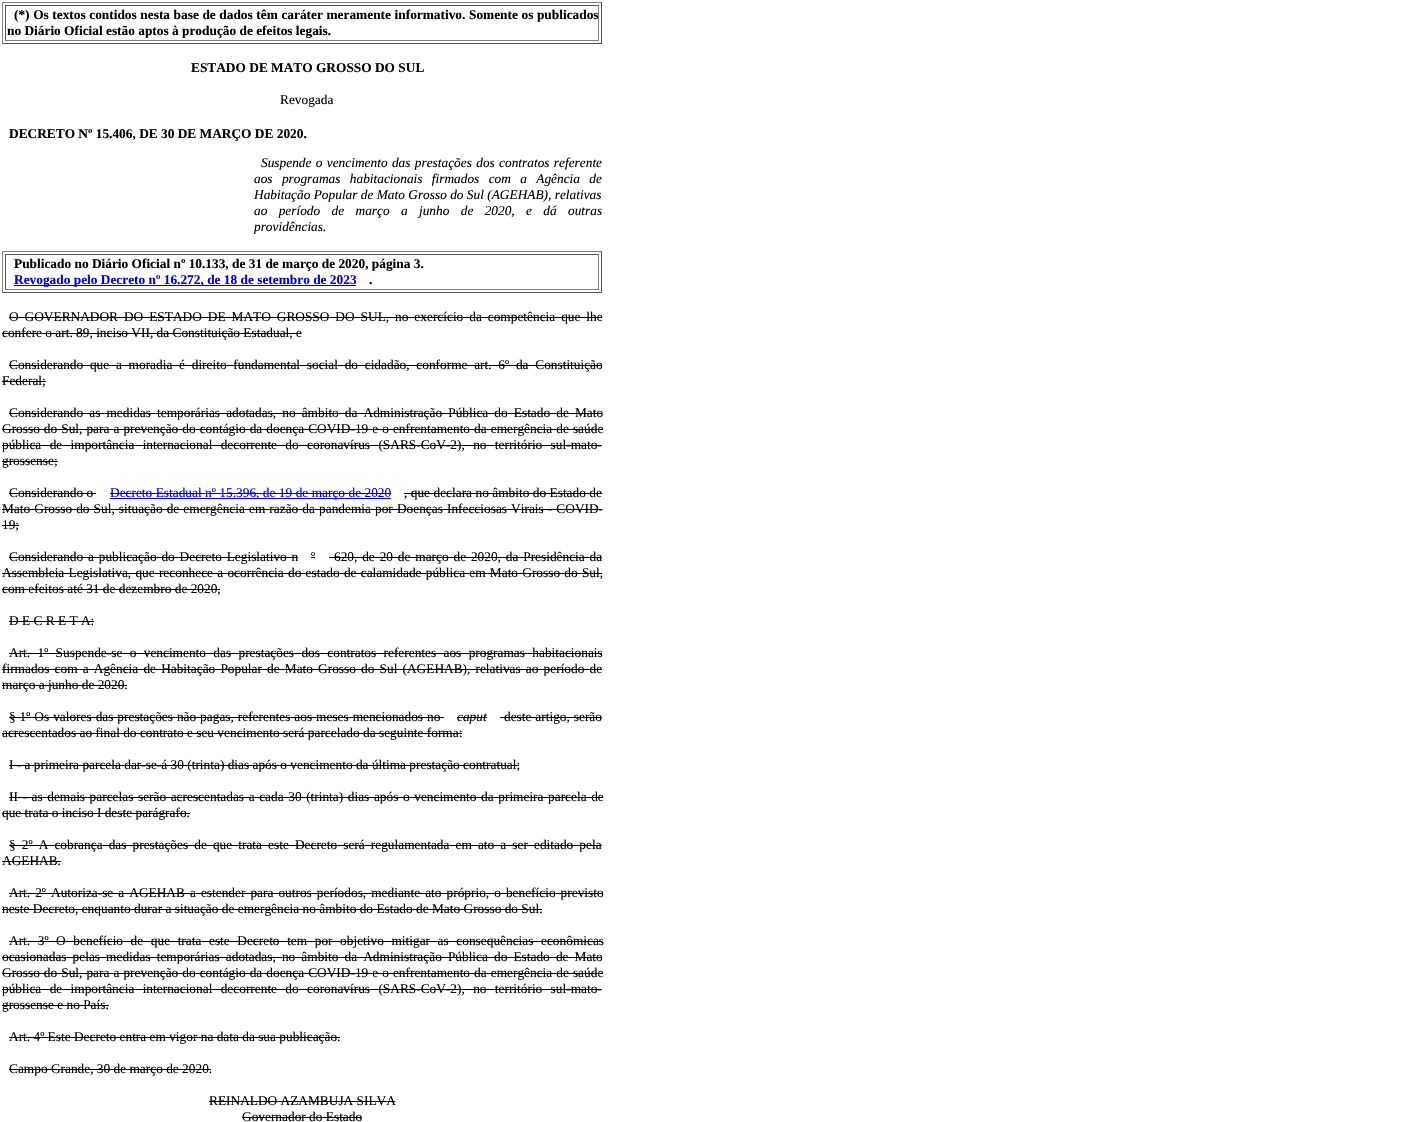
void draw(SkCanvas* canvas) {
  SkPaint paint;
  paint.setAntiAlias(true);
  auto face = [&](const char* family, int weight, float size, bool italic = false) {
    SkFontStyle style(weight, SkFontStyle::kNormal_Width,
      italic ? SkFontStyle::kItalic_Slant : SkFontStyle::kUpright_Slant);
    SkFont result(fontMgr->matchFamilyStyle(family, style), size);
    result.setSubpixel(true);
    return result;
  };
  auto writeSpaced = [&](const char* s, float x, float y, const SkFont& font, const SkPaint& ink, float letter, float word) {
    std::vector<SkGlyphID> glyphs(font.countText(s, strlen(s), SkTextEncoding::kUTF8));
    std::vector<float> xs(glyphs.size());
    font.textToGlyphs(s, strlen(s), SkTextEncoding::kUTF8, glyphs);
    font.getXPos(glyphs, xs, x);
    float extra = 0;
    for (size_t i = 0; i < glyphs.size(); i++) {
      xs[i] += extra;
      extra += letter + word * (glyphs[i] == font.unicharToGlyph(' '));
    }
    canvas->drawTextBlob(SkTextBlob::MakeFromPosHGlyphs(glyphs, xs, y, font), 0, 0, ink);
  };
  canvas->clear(0xffffffff);
  {
    const struct { float x, y, w, h; SkColor color; } items[] = {
      {2, 2, 600, 1, 0xff808080},
      {601, 2, 1, 42, 0xff555555},
      {2, 43, 600, 1, 0xff555555},
      {2, 2, 1, 42, 0xff808080},
      {5, 5, 594, 1, 0xff555555},
      {598, 5, 1, 36, 0xff808080},
      {5, 40, 594, 1, 0xff808080},
      {5, 5, 1, 36, 0xff555555},
      {2, 251, 600, 1, 0xff808080},
      {601, 251, 1, 42, 0xff555555},
      {2, 292, 600, 1, 0xff555555},
      {2, 251, 1, 42, 0xff808080},
      {5, 254, 594, 1, 0xff555555},
      {598, 254, 1, 36, 0xff808080},
      {5, 289, 594, 1, 0xff808080},
      {5, 254, 1, 36, 0xff555555},
      {14, 285, 342, 1, 0xff0000ee},
      {9, 317, 593, 1, 0xff000000},
      {2, 333, 299, 1, 0xff000000},
      {9, 365, 593, 1, 0xff000000},
      {2, 381, 44, 1, 0xff000000},
      {9, 413, 593, 1, 0xff000000},
      {2, 429, 600, 1, 0xff000000},
      {2, 445, 600, 1, 0xff000000},
      {2, 461, 56, 1, 0xff000000},
      {9, 493, 87, 1, 0xff000000},
      {110, 498, 281, 1, 0xff0000ee},
      {110, 493, 281, 1, 0xff0000ee},
      {404, 493, 198, 1, 0xff000000},
      {2, 509, 600, 1, 0xff000000},
      {2, 525, 17, 1, 0xff000000},
      {9, 557, 289, 1, 0xff000000},
      {311, 557, 4, 1, 0xff000000},
      {329, 557, 273, 1, 0xff000000},
      {2, 573, 600, 1, 0xff000000},
      {2, 589, 218, 1, 0xff000000},
      {9, 621, 85, 1, 0xff000000},
      {9, 653, 593, 1, 0xff000000},
      {2, 669, 600, 1, 0xff000000},
      {2, 685, 125, 1, 0xff000000},
      {9, 717, 435, 1, 0xff000000},
      {457, 717, 30, 1, 0xff000000},
      {500, 717, 102, 1, 0xff000000},
      {2, 733, 460, 1, 0xff000000},
      {9, 765, 510, 1, 0xff000000},
      {9, 797, 593, 1, 0xff000000},
      {2, 813, 188, 1, 0xff000000},
      {9, 845, 593, 1, 0xff000000},
      {2, 861, 59, 1, 0xff000000},
      {9, 893, 593, 1, 0xff000000},
      {2, 909, 540, 1, 0xff000000},
      {9, 941, 593, 1, 0xff000000},
      {2, 957, 600, 1, 0xff000000},
      {2, 973, 600, 1, 0xff000000},
      {2, 989, 600, 1, 0xff000000},
      {2, 1005, 107, 1, 0xff000000},
      {9, 1037, 331, 1, 0xff000000},
      {9, 1069, 202, 1, 0xff000000},
      {209, 1101, 186, 1, 0xff000000},
      {242, 1117, 120, 1, 0xff000000},
    };
    for (auto [x, y, w, h, color] : items) {
      paint.setColor(color);
      canvas->drawRect(SkRect::MakeXYWH(x, y, w, h), paint);
    }
  }
  auto f0 = face("Liberation Serif", 700, 13.35f);
  writeSpaced("(*) Os textos contidos nesta base de dados têm caráter meramente informativo. Somente os publicados", 14, 19, f0, paint, 0, 0.25f);
  canvas->drawString("no Diário Oficial estão aptos à produção de efeitos legais.", 7, 35, f0, paint);
  canvas->drawString("ESTADO DE MATO GROSSO DO SUL", 191, 72, f0, paint);
  auto f1 = face("Liberation Serif", 400, 13.35f);
  canvas->drawString("Revogada", 280, 104, f1, paint);
  canvas->drawString("DECRETO Nº 15.406, DE 30 DE MARÇO DE 2020.", 9, 138, f0, paint);
  auto f2 = face("Liberation Serif", 400, 13.35f, true);
  writeSpaced("Suspende o vencimento das prestações dos contratos referente", 261, 167, f2, paint, 0, 1);
  writeSpaced("aos programas habitacionais firmados com a Agência de", 254, 183, f2, paint, 0, 6);
  canvas->drawString("Habitação Popular de Mato Grosso do Sul (AGEHAB), relativas", 254, 199, f2, paint);
  writeSpaced("ao período de março a junho de 2020, e dá outras", 254, 215, f2, paint, 0, 8);
  canvas->drawString("providências.", 254, 231, f2, paint);
  canvas->drawString("Publicado no Diário Oficial nº 10.133, de 31 de março de 2020, página 3.", 14, 268, f0, paint);
  paint.setColor(0xff0000ee);
  canvas->drawString("Revogado pelo Decreto nº 16.272, de 18 de setembro de 2023", 14, 284, f0, paint);
  paint.setColor(0xff000000);
  canvas->drawString(".", 369, 284, f0, paint);
  writeSpaced("O GOVERNADOR DO ESTADO DE MATO GROSSO DO SUL, no exercício da competência que lhe", 9, 321, f1, paint, 0, 2.6f);
  canvas->drawString("confere o art. 89, inciso VII, da Constituição Estadual, e", 2, 337, f1, paint);
  writeSpaced("Considerando que a moradia é direito fundamental social do cidadão, conforme art. 6º da Constituição", 9, 369, f1, paint, 0, 3.4f);
  canvas->drawString("Federal;", 2, 385, f1, paint);
  writeSpaced("Considerando as medidas temporárias adotadas, no âmbito da Administração Pública do Estado de Mato", 9, 417, f1, paint, 0, 2.75f);
  writeSpaced("Grosso do Sul, para a prevenção do contágio da doença COVID-19 e o enfrentamento da emergência de saúde", 2, 433, f1, paint, 0, 0.7f);
  writeSpaced("pública de importância internacional decorrente do coronavírus (SARS-CoV-2), no território sul-mato-", 2, 449, f1, paint, 0, 5);
  canvas->drawString("grossense;", 2, 465, f1, paint);
  canvas->drawString("Considerando o", 9, 497, f1, paint);
  paint.setColor(0xff0000ee);
  writeSpaced("Decreto Estadual nº 15.396, de 19 de março de 2020", 110, 497, f1, paint, 0, 0.1f);
  paint.setColor(0xff000000);
  writeSpaced(", que declara no âmbito do Estado de", 404, 497, f1, paint, 0, 0.1f);
  writeSpaced("Mato Grosso do Sul, situação de emergência em razão da pandemia por Doenças Infecciosas Virais - COVID-", 2, 513, f1, paint, 0, 0.75f);
  canvas->drawString("19;", 2, 529, f1, paint);
  writeSpaced("Considerando a publicação do Decreto Legislativo n", 9, 561, f1, paint, 0, 1.5f);
  canvas->drawString("º", 311, 561, f1, paint);
  writeSpaced("620, de 20 de março de 2020, da Presidência da", 334, 561, f1, paint, 0, 1.5f);
  writeSpaced("Assembleia Legislativa, que reconhece a ocorrência do estado de calamidade pública em Mato Grosso do Sul,", 2, 577, f1, paint, 0, 0.9f);
  canvas->drawString("com efeitos até 31 de dezembro de 2020,", 2, 593, f1, paint);
  canvas->drawString("D E C R E T A:", 9, 625, f1, paint);
  writeSpaced("Art. 1º Suspende-se o vencimento das prestações dos contratos referentes aos programas habitacionais", 9, 657, f1, paint, 0, 4);
  writeSpaced("firmados com a Agência de Habitação Popular de Mato Grosso do Sul (AGEHAB), relativas ao período de", 2, 673, f1, paint, 0, 1.8f);
  canvas->drawString("março a junho de 2020.", 2, 689, f1, paint);
  writeSpaced("§ 1º Os valores das prestações não pagas, referentes aos meses mencionados no", 9, 721, f1, paint, 0, 0.6f);
  canvas->drawString("caput", 457, 721, f2, paint);
  writeSpaced("deste artigo, serão", 504, 721, f1, paint, 0, 0.6f);
  canvas->drawString("acrescentados ao final do contrato e seu vencimento será parcelado da seguinte forma:", 2, 737, f1, paint);
  canvas->drawString("I - a primeira parcela dar-se-á 30 (trinta) dias após o vencimento da última prestação contratual;", 9, 769, f1, paint);
  writeSpaced("II - as demais parcelas serão acrescentadas a cada 30 (trinta) dias após o vencimento da primeira parcela de", 9, 801, f1, paint, 0, 1.25f);
  canvas->drawString("que trata o inciso I deste parágrafo.", 2, 817, f1, paint);
  writeSpaced("§ 2º A cobrança das prestações de que trata este Decreto será regulamentada em ato a ser editado pela", 9, 849, f1, paint, 0, 2.75f);
  canvas->drawString("AGEHAB.", 2, 865, f1, paint);
  writeSpaced("Art. 2º Autoriza-se a AGEHAB a estender para outros períodos, mediante ato próprio, o benefício previsto", 9, 897, f1, paint, 0, 1.7f);
  canvas->drawString("neste Decreto, enquanto durar a situação de emergência no âmbito do Estado de Mato Grosso do Sul.", 2, 913, f1, paint);
  writeSpaced("Art. 3º O benefício de que trata este Decreto tem por objetivo mitigar as consequências econômicas", 9, 945, f1, paint, 0, 4.25f);
  writeSpaced("ocasionadas pelas medidas temporárias adotadas, no âmbito da Administração Pública do Estado de Mato", 2, 961, f1, paint, 0, 2.75f);
  writeSpaced("Grosso do Sul, para a prevenção do contágio da doença COVID-19 e o enfrentamento da emergência de saúde", 2, 977, f1, paint, 0, 0.7f);
  writeSpaced("pública de importância internacional decorrente do coronavírus (SARS-CoV-2), no território sul-mato-", 2, 993, f1, paint, 0, 5);
  {
    const struct { const char* s; float x, y; } items[] = {
      {"grossense e no País.", 2, 1009},
      {"Art. 4º Este Decreto entra em vigor na data da sua publicação.", 9, 1041},
      {"Campo Grande, 30 de março de 2020.", 9, 1073},
      {"REINALDO AZAMBUJA SILVA", 209, 1105},
      {"Governador do Estado", 242, 1121},
    };
    for (auto [s, x, y] : items) {
      canvas->drawString(s, x, y, f1, paint);
    }
  }
}
